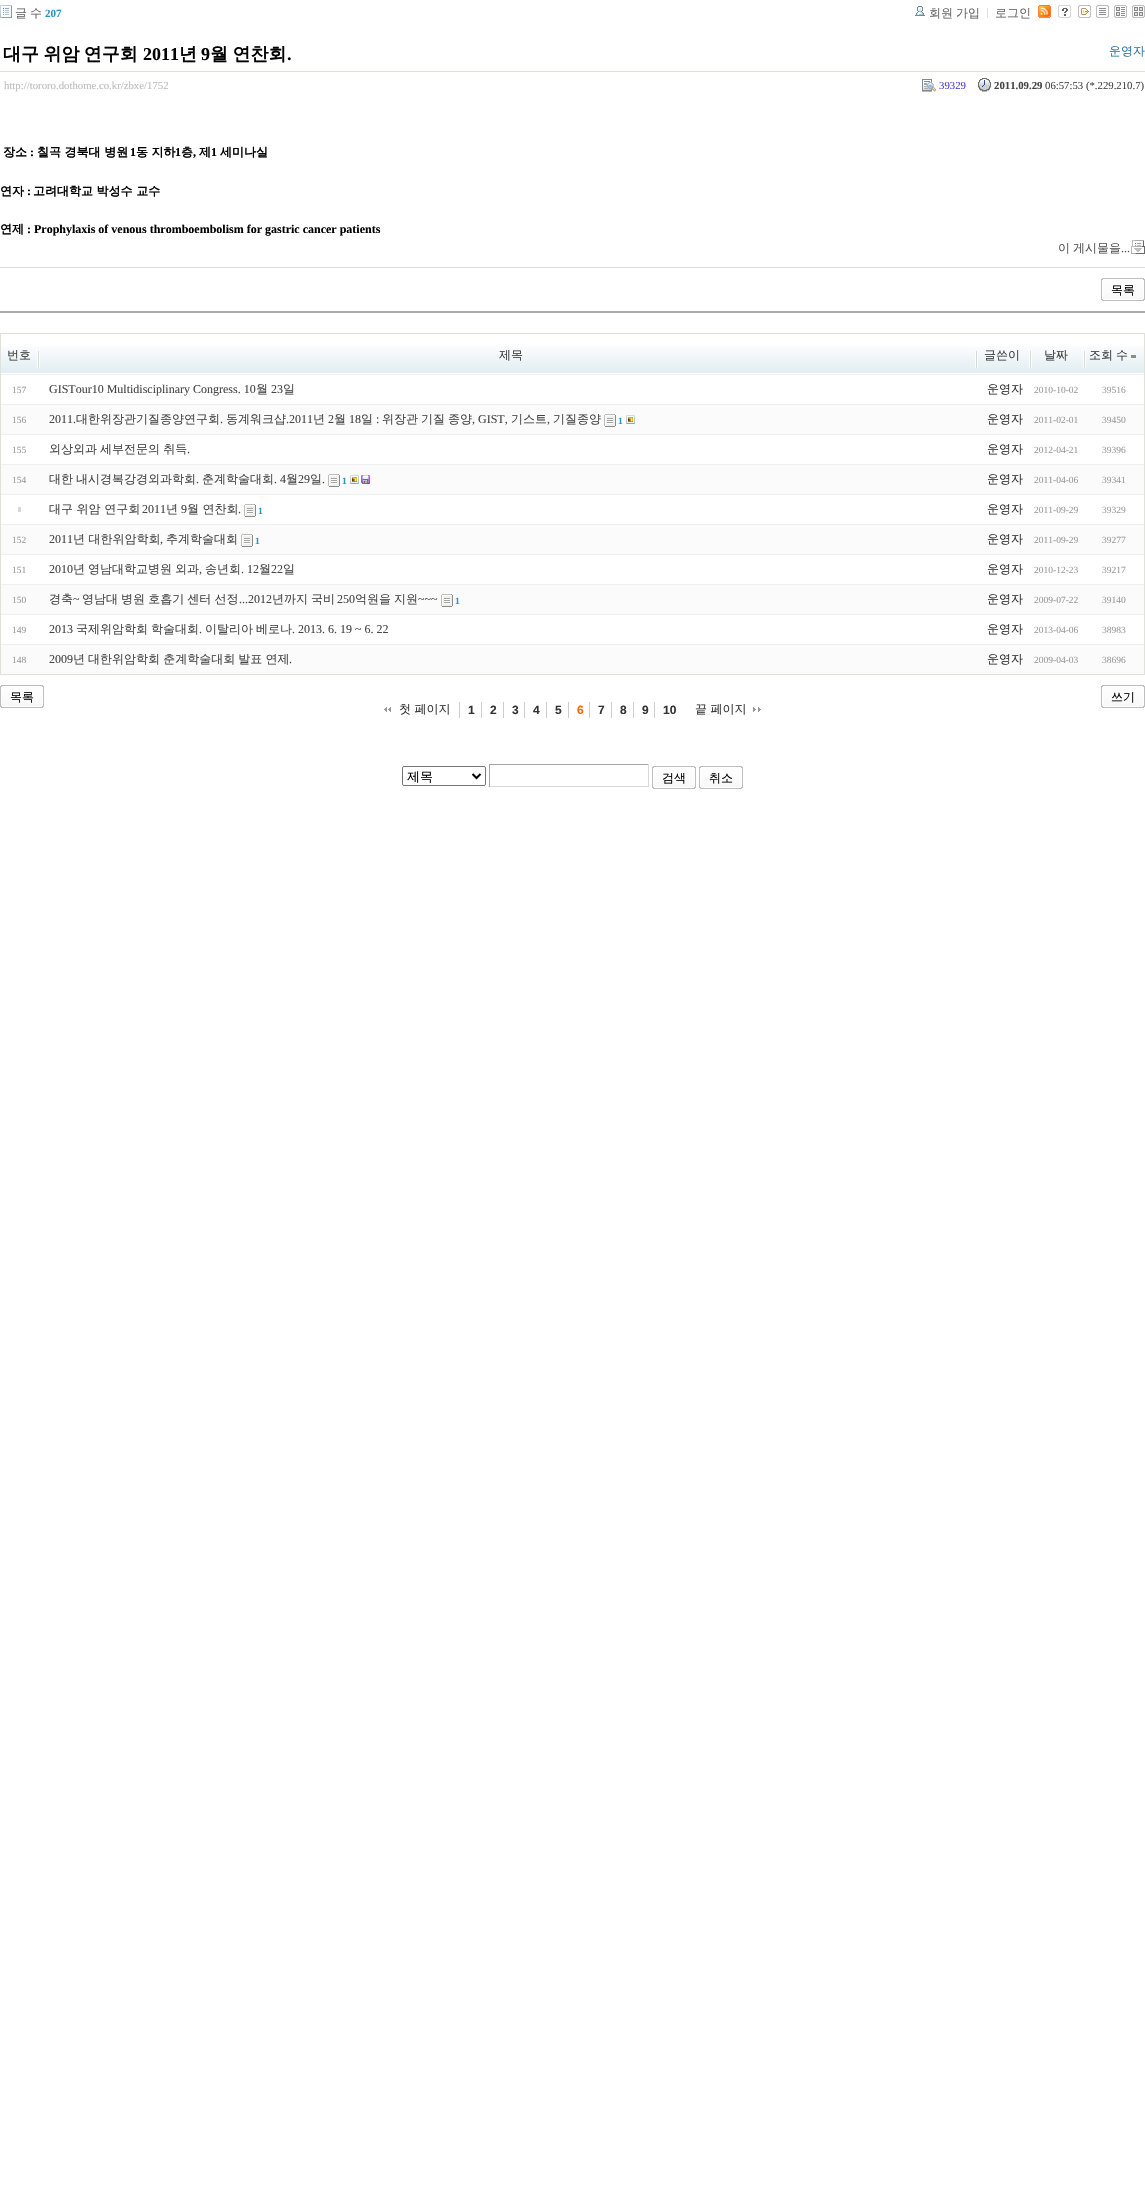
void draw(SkCanvas* canvas) {
  SkPaint paint;
  paint.setAntiAlias(true);
  auto face = [&](const char* family, int weight, float size, bool italic = false) {
    SkFontStyle style(weight, SkFontStyle::kNormal_Width,
      italic ? SkFontStyle::kItalic_Slant : SkFontStyle::kUpright_Slant);
    SkFont result(fontMgr->matchFamilyStyle(family, style), size);
    result.setSubpixel(true);
    return result;
  };
  auto writeSpaced = [&](const char* s, float x, float y, const SkFont& font, const SkPaint& ink, float letter, float word) {
    std::vector<SkGlyphID> glyphs(font.countText(s, strlen(s), SkTextEncoding::kUTF8));
    std::vector<float> xs(glyphs.size());
    font.textToGlyphs(s, strlen(s), SkTextEncoding::kUTF8, glyphs);
    font.getXPos(glyphs, xs, x);
    float extra = 0;
    for (size_t i = 0; i < glyphs.size(); i++) {
      xs[i] += extra;
      extra += letter + word * (glyphs[i] == font.unicharToGlyph(' '));
    }
    canvas->drawTextBlob(SkTextBlob::MakeFromPosHGlyphs(glyphs, xs, y, font), 0, 0, ink);
  };
  auto paste = [&](const char* path, float x, float y, float w, float h) {
    auto image = SkImages::DeferredFromEncodedData(SkData::MakeFromFileName(path));
    canvas->drawImageRect(image, SkRect::MakeXYWH(x, y, w, h), SkSamplingOptions());
  };
  auto shape = [&](const char* data, bool evenOdd = false) {
    SkPath result = *SkParsePath::FromSVGString(data);
    if (evenOdd) result.setFillType(SkPathFillType::kEvenOdd);
    return result;
  };
  canvas->clear(0xffffffff);
  paste("img/1.png", 0, 5, 12, 13);
  paste("img/2.png", 915, 6, 10, 10);
  paint.setColor(0xffe0e0e0);
  canvas->drawRect(SkRect::MakeXYWH(987, 8, 1, 10), paint);
  paste("img/3.png", 1038, 5, 13, 13);
  paste("img/4.png", 1058, 5, 13, 13);
  paste("img/5.png", 1078, 5, 13, 13);
  paste("img/6.png", 1096, 5, 13, 13);
  paste("img/7.png", 1114, 5, 13, 13);
  paste("img/8.png", 1132, 5, 13, 13);
  paint.setColor(0xffaaaaaa);
  canvas->drawRect(SkRect::MakeXYWH(0, 311, 1145, 2), paint);
  paint.setColor(0xffe0e1db);
  canvas->drawRect(SkRect::MakeXYWH(0, 71, 1145, 1), paint);
  paste("img/9.png", 922, 79, 14, 13);
  paste("img/10.png", 978, 78, 13, 14);
  paste("img/11.png", 1131, 240, 14, 14);
  paint.setColor(0xffdddddd);
  canvas->drawRect(SkRect::MakeXYWH(0, 267, 1145, 1), paint);
  paste("img/12.png", 1101, 278, 42, 23);
  paste("img/13.png", 1143, 278, 2, 23);
  {
    const struct { float x, y, w, h; SkColor color; } items[] = {
      {1144, 333, 1, 342, 0xffe0e1db},
      {0, 674, 1145, 1, 0xffe0e1db},
      {0, 333, 1, 342, 0xffe0e1db},
    };
    for (auto [x, y, w, h, color] : items) {
      paint.setColor(color);
      canvas->drawRect(SkRect::MakeXYWH(x, y, w, h), paint);
    }
  }
  paste("img/14.png", 1, 346, 36, 27);
  canvas->drawRect(SkRect::MakeXYWH(1, 333, 1143, 1), paint);
  paste("img/15.png", 37, 346, 938, 27);
  paste("img/16.png", 975, 346, 54, 27);
  paste("img/16.png", 1029, 346, 54, 27);
  paste("img/17.png", 1083, 346, 61, 27);
  {
    const struct { float x, y, w, h; SkColor color; } items[] = {
      {1131, 355, 5, 3, 0xff8c8f86},
      {1, 374, 1143, 1, 0xffeff0ed},
      {1, 405, 1143, 29, 0xfffbfbfb},
      {1, 404, 1143, 1, 0xffeff0ed},
    };
    for (auto [x, y, w, h, color] : items) {
      paint.setColor(color);
      canvas->drawRect(SkRect::MakeXYWH(x, y, w, h), paint);
    }
  }
  paste("img/18.png", 604, 414, 12, 13);
  paste("img/19.png", 626, 415, 9, 9);
  {
    const struct { float x, y, w, h; SkColor color; } items[] = {
      {1, 434, 1143, 1, 0xffeff0ed},
      {1, 465, 1143, 29, 0xfffbfbfb},
      {1, 464, 1143, 1, 0xffeff0ed},
    };
    for (auto [x, y, w, h, color] : items) {
      paint.setColor(color);
      canvas->drawRect(SkRect::MakeXYWH(x, y, w, h), paint);
    }
  }
  paste("img/18.png", 328, 474, 12, 13);
  paste("img/19.png", 350, 475, 9, 9);
  paste("img/20.png", 361, 475, 9, 9);
  canvas->drawRect(SkRect::MakeXYWH(1, 494, 1143, 1), paint);
  paint.setColor(0xffd8d8d8);
  canvas->drawRect(SkRect::MakeXYWH(18, 507, 3, 5), paint);
  paste("img/21.png", 244, 504, 12, 13);
  paint.setColor(0xfffbfbfb);
  canvas->drawRect(SkRect::MakeXYWH(1, 525, 1143, 29), paint);
  paint.setColor(0xffeff0ed);
  canvas->drawRect(SkRect::MakeXYWH(1, 524, 1143, 1), paint);
  paste("img/18.png", 241, 534, 12, 13);
  {
    const struct { float x, y, w, h; SkColor color; } items[] = {
      {1, 554, 1143, 1, 0xffeff0ed},
      {1, 585, 1143, 29, 0xfffbfbfb},
      {1, 584, 1143, 1, 0xffeff0ed},
    };
    for (auto [x, y, w, h, color] : items) {
      paint.setColor(color);
      canvas->drawRect(SkRect::MakeXYWH(x, y, w, h), paint);
    }
  }
  paste("img/18.png", 441, 594, 12, 13);
  {
    const struct { float x, y, w, h; SkColor color; } items[] = {
      {1, 614, 1143, 1, 0xffeff0ed},
      {1, 645, 1143, 29, 0xfffbfbfb},
      {1, 644, 1143, 1, 0xffeff0ed},
    };
    for (auto [x, y, w, h, color] : items) {
      paint.setColor(color);
      canvas->drawRect(SkRect::MakeXYWH(x, y, w, h), paint);
    }
  }
  paste("img/12.png", 0, 685, 42, 23);
  paste("img/13.png", 42, 685, 2, 23);
  paste("img/12.png", 1101, 685, 42, 23);
  paste("img/13.png", 1143, 685, 2, 23);
  paste("img/22.png", 384, 707, 7, 5);
  {
    const struct { float x, y, w, h; SkColor color; } items[] = {
      {459, 702, 1, 16, 0xffcccccc},
      {481, 702, 1, 16, 0xffcccccc},
      {503, 702, 1, 16, 0xffcccccc},
      {524, 702, 1, 16, 0xffcccccc},
      {546, 702, 1, 16, 0xffcccccc},
      {568, 702, 1, 16, 0xffcccccc},
      {589, 702, 1, 16, 0xffcccccc},
      {611, 702, 1, 16, 0xffcccccc},
      {633, 702, 1, 16, 0xffcccccc},
      {654, 702, 1, 16, 0xffcccccc},
    };
    for (auto [x, y, w, h, color] : items) {
      paint.setColor(color);
      canvas->drawRect(SkRect::MakeXYWH(x, y, w, h), paint);
    }
  }
  paste("img/23.png", 753, 707, 8, 5);
  paint.setStroke(true);
  paint.setStrokeWidth(1);
  paint.setColor(0xff767676);
  canvas->drawRoundRect(SkRect::MakeXYWH(402.5f, 766.5f, 83, 19), 1.5f, 1.5f, paint);
  paint.setStrokeWidth(2);
  paint.setColor(0xff000000);
  canvas->drawPath(shape("M472.5 774L476.5 778L480.5 774"), paint);
  paint.setStroke(false);
  {
    const struct { float x, y, w, h; SkColor color; } items[] = {
      {489, 764, 160, 1, 0xffa6a6a6},
      {648, 764, 1, 23, 0xffd8d8d8},
      {489, 786, 160, 1, 0xffd8d8d8},
      {489, 764, 1, 23, 0xffa6a6a6},
    };
    for (auto [x, y, w, h, color] : items) {
      paint.setColor(color);
      canvas->drawRect(SkRect::MakeXYWH(x, y, w, h), paint);
    }
  }
  paste("img/12.png", 652, 766, 42, 23);
  paste("img/13.png", 694, 766, 2, 23);
  paste("img/12.png", 699, 766, 42, 23);
  paste("img/13.png", 741, 766, 2, 23);
  auto f0 = face("WenQuanYi Zen Hei", 500, 12);
  paint.setColor(0xff666666);
  writeSpaced("글 수", 15, 17, f0, paint, 0, -0.5f);
  auto f1 = face("Liberation Serif", 700, 11);
  paint.setColor(0xff2895c0);
  canvas->drawString("207", 45, 17, f1, paint);
  paint.setColor(0xff666666);
  writeSpaced("회원 가입", 929, 17, f0, paint, 0, -0.5f);
  canvas->drawString("로그인", 995, 17, f0, paint);
  auto f2 = face("WenQuanYi Zen Hei", 700, 18);
  paint.setColor(0xff000000);
  writeSpaced("대구 위암 연구회", 3, 60, f2, paint, 0, -1);
  auto f3 = face("Liberation Serif", 700, 18);
  canvas->drawString("2011", 143, 60, f3, paint);
  canvas->drawString("년", 179, 60, f2, paint);
  canvas->drawString("9", 201, 60, f3, paint);
  writeSpaced("월 연찬회", 210, 60, f2, paint, 0, -1);
  canvas->drawString(".", 287, 60, f3, paint);
  paint.setColor(0xff3074a5);
  canvas->drawString("운영자", 1109, 55, f0, paint);
  auto f4 = face("Liberation Serif", 400, 10.75f);
  paint.setColor(0xffbbbbbb);
  canvas->drawString("http://tororo.dothome.co.kr/zbxe/1752", 4, 89, f4, paint);
  paint.setColor(0xff4a3fd7);
  canvas->drawString("39329", 939, 89, f4, paint);
  auto f5 = face("Liberation Serif", 700, 10.75f);
  paint.setColor(0xff444444);
  canvas->drawString("2011.09.29", 994, 89, f5, paint);
  canvas->drawString("06:57:53 (*.229.210.7)", 1045, 89, f4, paint);
  auto f6 = face("WenQuanYi Zen Hei", 700, 12);
  paint.setColor(0xff000000);
  canvas->drawString("장소", 3, 156, f6, paint);
  auto f7 = face("Liberation Serif", 700, 12);
  canvas->drawString(":", 30, 156, f7, paint);
  canvas->drawString("칠곡 경북대 병원", 37, 156, f6, paint);
  canvas->drawString("1", 130, 156, f7, paint);
  canvas->drawString("동 지하", 136, 156, f6, paint);
  canvas->drawString("1", 175, 156, f7, paint);
  canvas->drawString("층", 181, 156, f6, paint);
  canvas->drawString(",", 193, 156, f7, paint);
  canvas->drawString("제", 199, 156, f6, paint);
  canvas->drawString("1", 211, 156, f7, paint);
  canvas->drawString("세미나실", 220, 156, f6, paint);
  canvas->drawString("연자", 0, 195, f6, paint);
  canvas->drawString(":", 27, 195, f7, paint);
  canvas->drawString("고려대학교 박성수 교수", 33, 195, f6, paint);
  canvas->drawString("연제", 0, 233, f6, paint);
  canvas->drawString(": Prophylaxis of venous thromboembolism for gastric cancer patients", 27, 233, f7, paint);
  paint.setColor(0xff555555);
  writeSpaced("이 게시물을", 1058, 252, f0, paint, 0, -0.5f);
  auto f8 = face("Liberation Serif", 400, 12);
  canvas->drawString("...", 1121, 252, f8, paint);
  paint.setColor(0xff000000);
  canvas->drawString("목록", 1111, 294, f0, paint);
  paint.setColor(0xff3e3f3e);
  {
    const struct { const char* s; float x, y; } items[] = {
      {"번호", 7, 359},
      {"제목", 499, 359},
      {"글쓴이", 984, 359},
      {"날짜", 1044, 359},
    };
    for (auto [s, x, y] : items) {
      canvas->drawString(s, x, y, f0, paint);
    }
  }
  writeSpaced("조회 수", 1089, 359, f0, paint, 0, -0.5f);
  auto f9 = face("Liberation Serif", 400, 9.5f);
  paint.setColor(0xff999999);
  canvas->drawString("157", 12, 393, f9, paint);
  paint.setColor(0xff444444);
  canvas->drawString("GISTour10 Multidisciplinary Congress. 10", 49, 393, f8, paint);
  canvas->drawString("월", 256, 393, f0, paint);
  canvas->drawString("23", 271, 393, f8, paint);
  canvas->drawString("일", 283, 393, f0, paint);
  paint.setColor(0xff333333);
  canvas->drawString("운영자", 987, 393, f0, paint);
  paint.setColor(0xff999999);
  {
    const struct { const char* s; float x, y; } items[] = {
      {"2010-10-02", 1034, 393},
      {"39516", 1102, 393},
      {"156", 12, 423},
    };
    for (auto [s, x, y] : items) {
      canvas->drawString(s, x, y, f9, paint);
    }
  }
  paint.setColor(0xff444444);
  canvas->drawString("2011.", 49, 423, f8, paint);
  canvas->drawString("대한위장관기질종양연구회", 76, 423, f0, paint);
  canvas->drawString(".", 220, 423, f8, paint);
  canvas->drawString("동계워크샵", 226, 423, f0, paint);
  canvas->drawString(".2011", 286, 423, f8, paint);
  canvas->drawString("년", 313, 423, f0, paint);
  canvas->drawString("2", 328, 423, f8, paint);
  canvas->drawString("월", 334, 423, f0, paint);
  canvas->drawString("18", 349, 423, f8, paint);
  canvas->drawString("일", 361, 423, f0, paint);
  canvas->drawString(":", 376, 423, f8, paint);
  {
    const struct { const char* s; float x, y; } items[] = {
      {"위장관", 382, 423},
      {"기질", 421, 423},
      {"종양", 448, 423},
    };
    for (auto [s, x, y] : items) {
      canvas->drawString(s, x, y, f0, paint);
    }
  }
  canvas->drawString(", GIST,", 472, 423, f8, paint);
  canvas->drawString("기스트", 511, 423, f0, paint);
  canvas->drawString(",", 547, 423, f8, paint);
  canvas->drawString("기질종양", 553, 423, f0, paint);
  auto f10 = face("Liberation Serif", 700, 9.5f);
  paint.setColor(0xff2895c0);
  canvas->drawString("1", 618, 424, f10, paint);
  paint.setColor(0xff333333);
  canvas->drawString("운영자", 987, 423, f0, paint);
  paint.setColor(0xff999999);
  {
    const struct { const char* s; float x, y; } items[] = {
      {"2011-02-01", 1034, 423},
      {"39450", 1102, 423},
      {"155", 12, 453},
    };
    for (auto [s, x, y] : items) {
      canvas->drawString(s, x, y, f9, paint);
    }
  }
  paint.setColor(0xff444444);
  writeSpaced("외상외과 세부전문의 취득", 49, 453, f0, paint, 0, -0.5f);
  canvas->drawString(".", 187, 453, f8, paint);
  paint.setColor(0xff333333);
  canvas->drawString("운영자", 987, 453, f0, paint);
  paint.setColor(0xff999999);
  {
    const struct { const char* s; float x, y; } items[] = {
      {"2012-04-21", 1034, 453},
      {"39396", 1102, 453},
      {"154", 12, 483},
    };
    for (auto [s, x, y] : items) {
      canvas->drawString(s, x, y, f9, paint);
    }
  }
  paint.setColor(0xff444444);
  canvas->drawString("대한", 49, 483, f0, paint);
  canvas->drawString("내시경복강경외과학회", 76, 483, f0, paint);
  canvas->drawString(".", 196, 483, f8, paint);
  canvas->drawString("춘계학술대회", 202, 483, f0, paint);
  canvas->drawString(". 4", 274, 483, f8, paint);
  canvas->drawString("월", 286, 483, f0, paint);
  canvas->drawString("29", 298, 483, f8, paint);
  canvas->drawString("일", 310, 483, f0, paint);
  canvas->drawString(".", 322, 483, f8, paint);
  paint.setColor(0xff2895c0);
  canvas->drawString("1", 342, 484, f10, paint);
  paint.setColor(0xff333333);
  canvas->drawString("운영자", 987, 483, f0, paint);
  paint.setColor(0xff999999);
  canvas->drawString("2011-04-06", 1034, 483, f9, paint);
  canvas->drawString("39341", 1102, 483, f9, paint);
  paint.setColor(0xff444444);
  canvas->drawString("대구 위암 연구회", 49, 513, f0, paint);
  canvas->drawString("2011", 142, 513, f8, paint);
  canvas->drawString("년", 166, 513, f0, paint);
  canvas->drawString("9", 181, 513, f8, paint);
  canvas->drawString("월 연찬회", 187, 513, f0, paint);
  canvas->drawString(".", 238, 513, f8, paint);
  paint.setColor(0xff2895c0);
  canvas->drawString("1", 258, 514, f10, paint);
  paint.setColor(0xff333333);
  canvas->drawString("운영자", 987, 513, f0, paint);
  paint.setColor(0xff999999);
  {
    const struct { const char* s; float x, y; } items[] = {
      {"2011-09-29", 1034, 513},
      {"39329", 1102, 513},
      {"152", 12, 543},
    };
    for (auto [s, x, y] : items) {
      canvas->drawString(s, x, y, f9, paint);
    }
  }
  paint.setColor(0xff444444);
  canvas->drawString("2011", 49, 543, f8, paint);
  canvas->drawString("년 대한위암학회", 73, 543, f0, paint);
  canvas->drawString(",", 160, 543, f8, paint);
  canvas->drawString("추계학술대회", 166, 543, f0, paint);
  paint.setColor(0xff2895c0);
  canvas->drawString("1", 255, 544, f10, paint);
  paint.setColor(0xff333333);
  canvas->drawString("운영자", 987, 543, f0, paint);
  paint.setColor(0xff999999);
  {
    const struct { const char* s; float x, y; } items[] = {
      {"2011-09-29", 1034, 543},
      {"39277", 1102, 543},
      {"151", 12, 573},
    };
    for (auto [s, x, y] : items) {
      canvas->drawString(s, x, y, f9, paint);
    }
  }
  paint.setColor(0xff444444);
  canvas->drawString("2010", 49, 573, f8, paint);
  {
    const struct { const char* s; float x, y; } items[] = {
      {"년", 73, 573},
      {"영남대학교병원", 88, 573},
      {"외과", 175, 573},
    };
    for (auto [s, x, y] : items) {
      canvas->drawString(s, x, y, f0, paint);
    }
  }
  canvas->drawString(",", 199, 573, f8, paint);
  canvas->drawString("송년회", 205, 573, f0, paint);
  canvas->drawString(". 12", 241, 573, f8, paint);
  canvas->drawString("월", 259, 573, f0, paint);
  canvas->drawString("22", 271, 573, f8, paint);
  canvas->drawString("일", 283, 573, f0, paint);
  paint.setColor(0xff333333);
  canvas->drawString("운영자", 987, 573, f0, paint);
  paint.setColor(0xff999999);
  {
    const struct { const char* s; float x, y; } items[] = {
      {"2010-12-23", 1034, 573},
      {"39217", 1102, 573},
      {"150", 12, 603},
    };
    for (auto [s, x, y] : items) {
      canvas->drawString(s, x, y, f9, paint);
    }
  }
  paint.setColor(0xff444444);
  canvas->drawString("경축", 49, 603, f0, paint);
  canvas->drawString("~", 73, 603, f8, paint);
  writeSpaced("영남대 병원 호흡기 센터 선정", 82, 603, f0, paint, 0, -0.5f);
  canvas->drawString("...2012", 239, 603, f8, paint);
  writeSpaced("년까지 국비", 272, 603, f0, paint, 0, -0.5f);
  canvas->drawString("250", 337, 603, f8, paint);
  writeSpaced("억원을 지원", 355, 603, f0, paint, 0, -0.5f);
  canvas->drawString("~~~", 418, 603, f8, paint);
  paint.setColor(0xff2895c0);
  canvas->drawString("1", 455, 604, f10, paint);
  paint.setColor(0xff333333);
  canvas->drawString("운영자", 987, 603, f0, paint);
  paint.setColor(0xff999999);
  {
    const struct { const char* s; float x, y; } items[] = {
      {"2009-07-22", 1034, 603},
      {"39140", 1102, 603},
      {"149", 12, 633},
    };
    for (auto [s, x, y] : items) {
      canvas->drawString(s, x, y, f9, paint);
    }
  }
  paint.setColor(0xff444444);
  canvas->drawString("2013", 49, 633, f8, paint);
  canvas->drawString("국제위암학회", 76, 633, f0, paint);
  canvas->drawString("학술대회", 151, 633, f0, paint);
  canvas->drawString(".", 199, 633, f8, paint);
  canvas->drawString("이탈리아", 205, 633, f0, paint);
  canvas->drawString("베로나", 256, 633, f0, paint);
  canvas->drawString(". 2013. 6. 19 ~ 6. 22", 292, 633, f8, paint);
  paint.setColor(0xff333333);
  canvas->drawString("운영자", 987, 633, f0, paint);
  paint.setColor(0xff999999);
  {
    const struct { const char* s; float x, y; } items[] = {
      {"2013-04-06", 1034, 633},
      {"38983", 1102, 633},
      {"148", 12, 663},
    };
    for (auto [s, x, y] : items) {
      canvas->drawString(s, x, y, f9, paint);
    }
  }
  paint.setColor(0xff444444);
  canvas->drawString("2009", 49, 663, f8, paint);
  writeSpaced("년 대한위암학회 춘계학술대회 발표 연제", 73, 663, f0, paint, 0, -0.5f);
  canvas->drawString(".", 289, 663, f8, paint);
  paint.setColor(0xff333333);
  canvas->drawString("운영자", 987, 663, f0, paint);
  paint.setColor(0xff999999);
  canvas->drawString("2009-04-03", 1034, 663, f9, paint);
  canvas->drawString("38696", 1102, 663, f9, paint);
  paint.setColor(0xff000000);
  canvas->drawString("목록", 10, 701, f0, paint);
  canvas->drawString("쓰기", 1111, 701, f0, paint);
  paint.setColor(0xff333333);
  canvas->drawString("첫 페이지", 399, 713, f0, paint);
  auto f11 = face("Liberation Sans", 700, 12);
  {
    const struct { const char* s; float x, y; } items[] = {
      {"1", 468, 714},
      {"2", 490, 714},
      {"3", 512, 714},
      {"4", 533, 714},
      {"5", 555, 714},
    };
    for (auto [s, x, y] : items) {
      canvas->drawString(s, x, y, f11, paint);
    }
  }
  paint.setColor(0xffff6600);
  canvas->drawString("6", 577, 714, f11, paint);
  paint.setColor(0xff333333);
  {
    const struct { const char* s; float x, y; } items[] = {
      {"7", 598, 714},
      {"8", 620, 714},
      {"9", 642, 714},
      {"10", 663, 714},
    };
    for (auto [s, x, y] : items) {
      canvas->drawString(s, x, y, f11, paint);
    }
  }
  canvas->drawString("끝 페이지", 695, 713, f0, paint);
  auto f12 = face("WenQuanYi Zen Hei", 500, 13);
  paint.setColor(0xff000000);
  canvas->drawString("제목", 407, 781, f12, paint);
  canvas->drawString("검색", 662, 782, f0, paint);
  canvas->drawString("취소", 709, 782, f0, paint);
}
